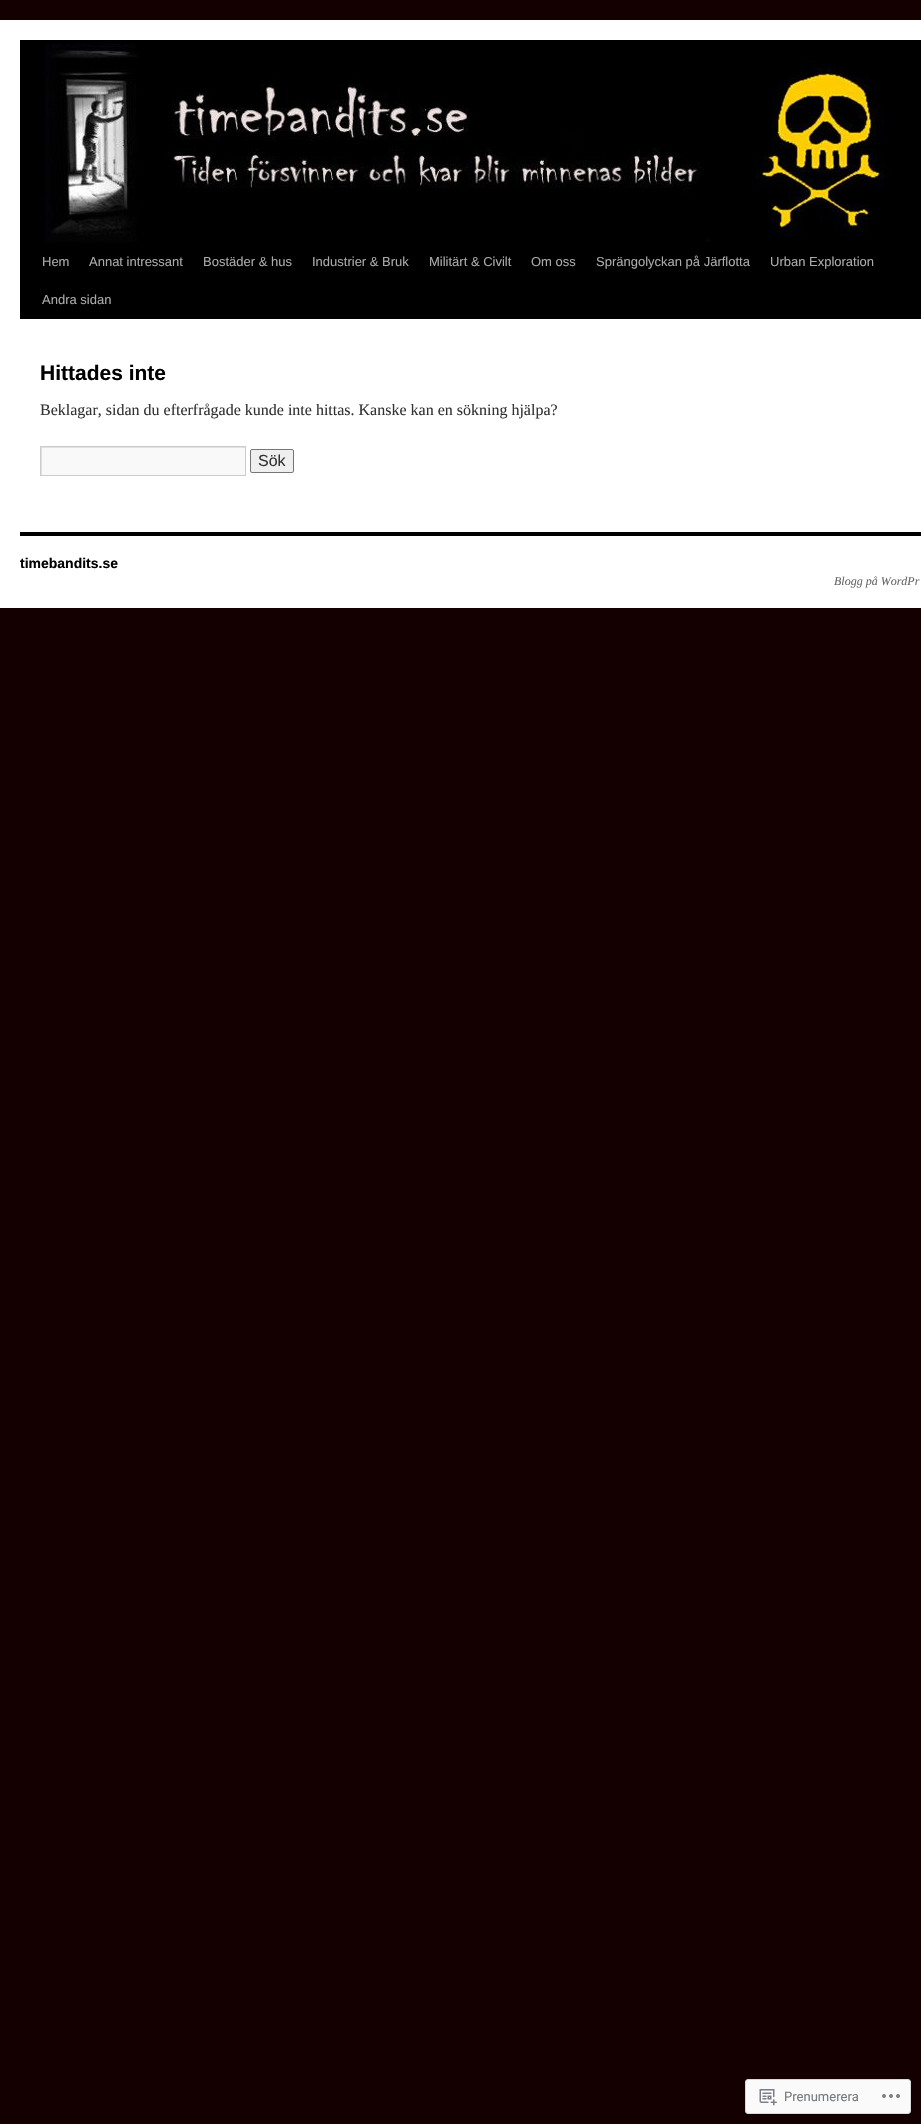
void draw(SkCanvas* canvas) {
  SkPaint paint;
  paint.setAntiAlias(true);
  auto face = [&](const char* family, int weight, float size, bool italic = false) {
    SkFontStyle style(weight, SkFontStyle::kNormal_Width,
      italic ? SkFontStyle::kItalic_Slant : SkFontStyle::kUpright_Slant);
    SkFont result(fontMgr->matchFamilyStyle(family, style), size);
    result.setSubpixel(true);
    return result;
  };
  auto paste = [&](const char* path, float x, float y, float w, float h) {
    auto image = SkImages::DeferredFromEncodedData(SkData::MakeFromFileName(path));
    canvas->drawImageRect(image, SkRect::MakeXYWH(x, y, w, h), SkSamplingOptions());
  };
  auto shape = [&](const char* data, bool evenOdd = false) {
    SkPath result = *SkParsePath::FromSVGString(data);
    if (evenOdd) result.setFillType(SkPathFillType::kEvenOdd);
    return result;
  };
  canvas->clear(0xff140000);
  {
    const struct { float x, y, w, h; SkColor color; } items[] = {
      {0, 20, 921, 588, 0xffffffff},
      {20, 40, 901, 4, 0xff000000},
      {20, 242, 901, 77, 0xff000000},
    };
    for (auto [x, y, w, h, color] : items) {
      paint.setColor(color);
      canvas->drawRect(SkRect::MakeXYWH(x, y, w, h), paint);
    }
  }
  paste("img/1.png", 20, 44, 901, 198);
  paint.setColor(0xfff9f9f9);
  canvas->drawRect(SkRect::MakeXYWH(42, 448, 203, 27), paint);
  canvas->save();
  canvas->clipRect(SkRect::MakeXYWH(41, 447, 204, 28));
  paint.setColor(0xffe0e0e0);
  canvas->drawPath(shape("M-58 348H344V574H-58ZM42 448H246V476H42Z", true), paint);
  canvas->restore();
  paint.setStroke(true);
  paint.setStrokeWidth(1);
  paint.setColor(0xffcccccc);
  canvas->drawRect(SkRect::MakeXYWH(40.5f, 446.5f, 205, 29), paint);
  paint.setStroke(false);
  paint.setColor(0xffefefef);
  canvas->drawRoundRect(SkRect::MakeXYWH(250.5f, 449.5f, 43, 23), 1.5f, 1.5f, paint);
  paint.setStroke(true);
  paint.setColor(0xff767676);
  canvas->drawRoundRect(SkRect::MakeXYWH(250.5f, 449.5f, 43, 23), 1.5f, 1.5f, paint);
  paint.setStroke(false);
  paint.setColor(0xff000000);
  canvas->drawRect(SkRect::MakeXYWH(20, 532, 901, 4), paint);
  paint.setColor(0xfffafafa);
  canvas->drawRoundRect(SkRect::MakeXYWH(745.5f, 2079.5f, 165, 34), 2.5f, 2.5f, paint);
  paint.setStroke(true);
  paint.setColor(0xffd8d8da);
  canvas->drawRoundRect(SkRect::MakeXYWH(745.5f, 2079.5f, 165, 34), 2.5f, 2.5f, paint);
  paste("img/2.png", 759, 2089, 18, 17);
  paste("img/3.png", 882, 2094, 18, 4);
  auto f0 = face("Liberation Sans", 400, 13);
  paint.setStroke(false);
  paint.setColor(0xffaaaaaa);
  {
    const struct { const char* s; float x, y; } items[] = {
      {"Hem", 42, 266},
      {"Annat intressant", 89, 266},
      {"Bostäder & hus", 203, 266},
      {"Industrier & Bruk", 312, 266},
      {"Militärt & Civilt", 429, 266},
      {"Om oss", 531, 266},
      {"Sprängolyckan på Järflotta", 596, 266},
      {"Urban Exploration", 770, 266},
      {"Andra sidan", 42, 304},
    };
    for (auto [s, x, y] : items) {
      canvas->drawString(s, x, y, f0, paint);
    }
  }
  auto f1 = face("Liberation Sans", 700, 21);
  paint.setColor(0xff000000);
  canvas->drawString("Hittades inte", 40, 380, f1, paint);
  auto f2 = face("Liberation Serif", 400, 16);
  paint.setColor(0xff333333);
  canvas->drawString("Beklagar, sidan du efterfrågade kunde inte hittas. Kanske kan en sökning hjälpa?", 40, 415, f2, paint);
  auto f3 = face("Liberation Sans", 400, 16);
  canvas->drawString("Sök", 258, 466, f3, paint);
  auto f4 = face("Liberation Sans", 700, 14);
  paint.setColor(0xff000000);
  canvas->drawString("timebandits.se", 20, 568, f4, paint);
  auto f5 = face("Liberation Serif", 400, 12, true);
  paint.setColor(0xff666666);
  canvas->drawString("Blogg på WordPr", 834, 585, f5, paint);
  auto f6 = face("Roboto", 400, 13);
  paint.setColor(0xff767a7f);
  canvas->drawString("Prenumerera", 784, 2101, f6, paint);
}
